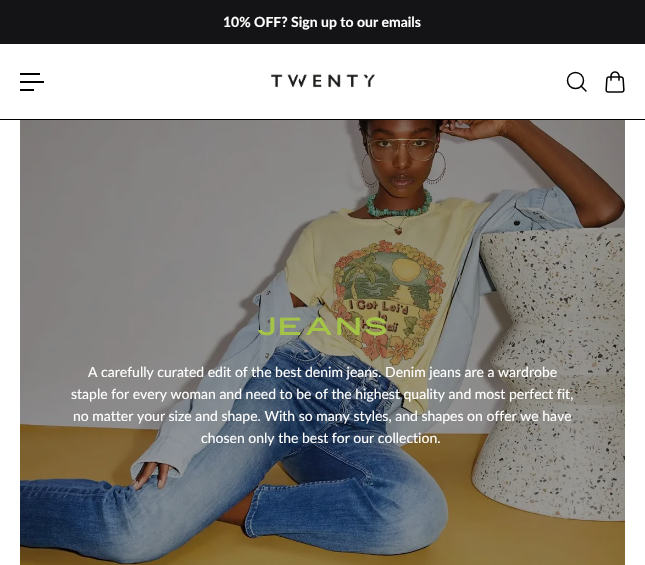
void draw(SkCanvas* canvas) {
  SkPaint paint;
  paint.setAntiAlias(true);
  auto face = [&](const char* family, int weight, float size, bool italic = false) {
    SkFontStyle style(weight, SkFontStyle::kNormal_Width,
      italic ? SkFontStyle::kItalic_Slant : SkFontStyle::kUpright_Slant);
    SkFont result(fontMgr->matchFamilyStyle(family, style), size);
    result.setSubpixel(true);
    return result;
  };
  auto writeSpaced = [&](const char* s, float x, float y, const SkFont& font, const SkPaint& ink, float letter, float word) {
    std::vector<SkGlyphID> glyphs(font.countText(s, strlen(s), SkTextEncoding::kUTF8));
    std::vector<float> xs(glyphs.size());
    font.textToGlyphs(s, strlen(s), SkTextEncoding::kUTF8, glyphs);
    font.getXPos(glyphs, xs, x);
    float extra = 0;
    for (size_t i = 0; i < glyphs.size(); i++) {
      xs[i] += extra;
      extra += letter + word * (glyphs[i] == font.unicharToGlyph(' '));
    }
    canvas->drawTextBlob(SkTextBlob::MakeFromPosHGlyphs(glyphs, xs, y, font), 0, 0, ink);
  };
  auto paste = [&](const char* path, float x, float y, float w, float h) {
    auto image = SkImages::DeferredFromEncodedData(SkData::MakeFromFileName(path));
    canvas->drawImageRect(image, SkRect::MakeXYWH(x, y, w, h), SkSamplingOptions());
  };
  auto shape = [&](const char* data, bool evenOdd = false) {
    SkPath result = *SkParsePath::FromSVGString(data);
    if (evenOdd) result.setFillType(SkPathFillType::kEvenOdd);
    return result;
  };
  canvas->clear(0xffffffff);
  {
    const struct { float x, y, w, h; SkColor color; } items[] = {
      {0, 0, 645, 44, 0xff141416},
      {0, 119, 645, 1, 0xff000000},
      {20, 73, 20, 2, 0xff000000},
      {20, 81, 24, 2, 0xff000000},
      {20, 89, 14, 2, 0xff000000},
    };
    for (auto [x, y, w, h, color] : items) {
      paint.setColor(color);
      canvas->drawRect(SkRect::MakeXYWH(x, y, w, h), paint);
    }
  }
  paste("img/1.png", 271, 74, 104, 14);
  paint.setStroke(true);
  paint.setStrokeWidth(1.5f);
  canvas->drawCircle(575.5f, 80.5f, 8, paint);
  paint.setStrokeCap(SkPaint::kRound_Cap);
  paint.setStrokeJoin(SkPaint::kRound_Join);
  canvas->drawPath(shape("M581 86L586 91"), paint);
  paste("img/2.png", 605, 71, 20, 22);
  paste("img/3.png", 20, 120, 605, 445);
  auto f0 = face("Lato", 700, 14);
  paint.setStroke(false);
  paint.setColor(0xffffffff);
  canvas->drawString("10% OFF? Sign up to our emails", 223, 27, f0, paint);
  auto f1 = face("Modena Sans", 400, 24);
  paint.setColor(0xffa4c447);
  writeSpaced("Jeans", 256, 335, f1, paint, 1, 0);
  auto f2 = face("Lato", 400, 14);
  paint.setColor(0xffffffff);
  {
    const struct { const char* s; float x, y; } items[] = {
      {"A carefully curated edit of the best denim jeans. Denim jeans are a wardrobe", 88, 377},
      {"staple for every woman and need to be of the highest quality and most perfect fit,", 71, 399},
      {"no matter your size and shape. With so many styles, and shapes on offer we have", 73, 421},
      {"chosen only the best for our collection.", 201, 443},
    };
    for (auto [s, x, y] : items) {
      canvas->drawString(s, x, y, f2, paint);
    }
  }
}
